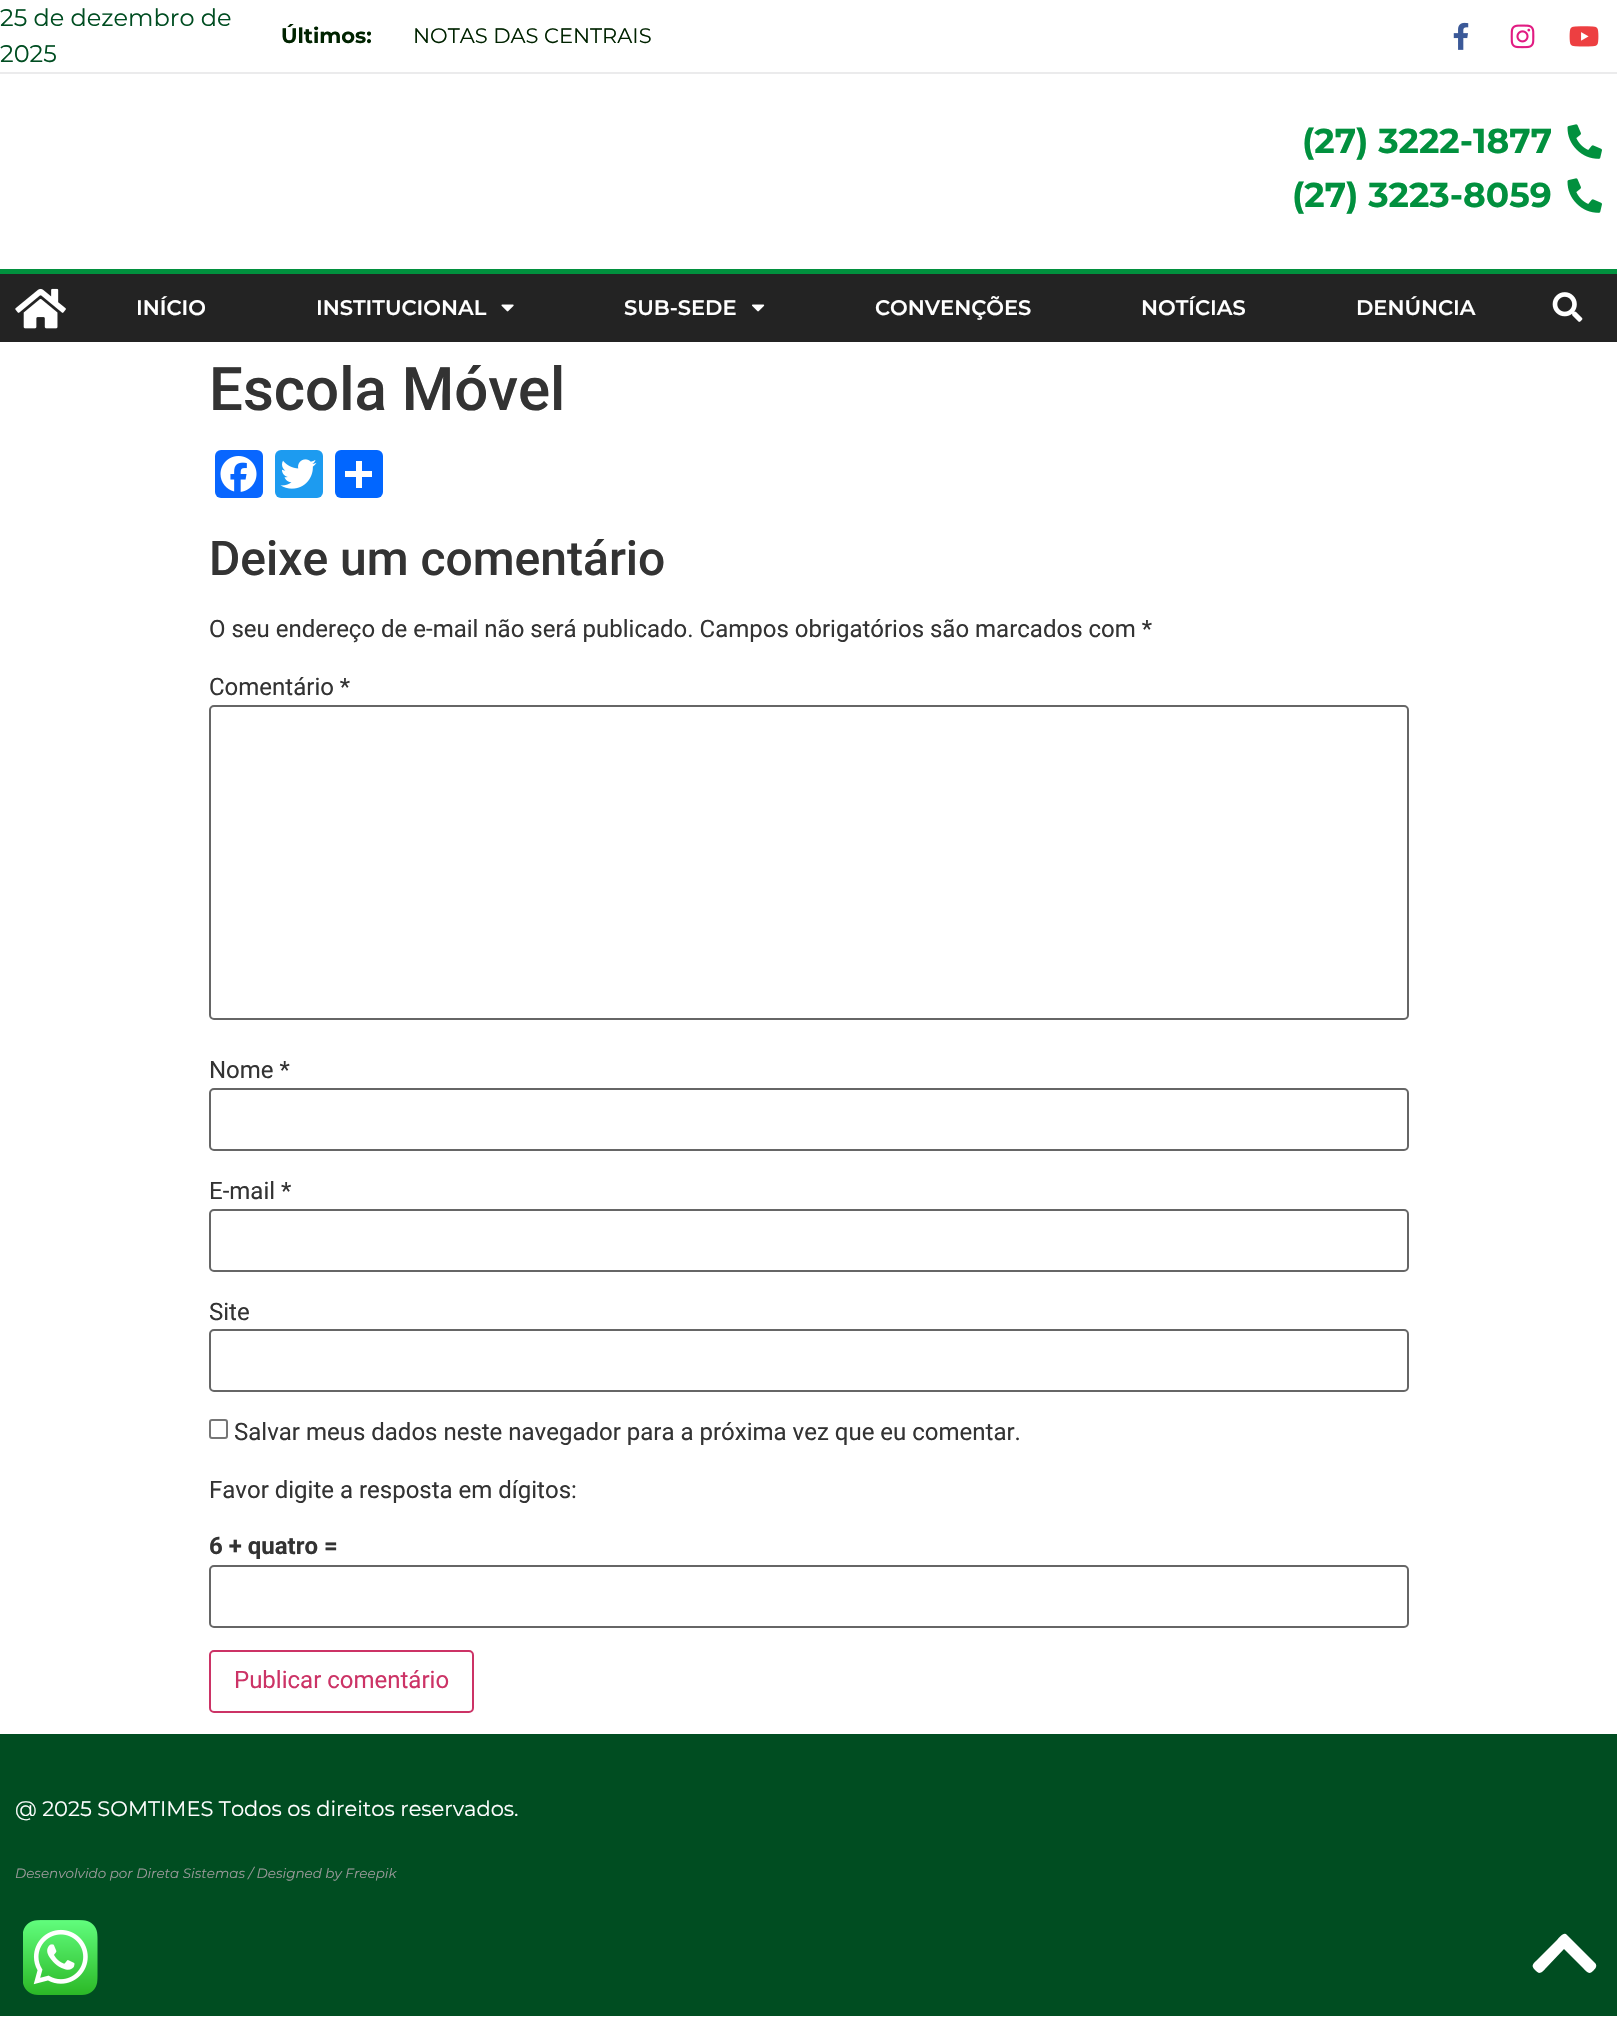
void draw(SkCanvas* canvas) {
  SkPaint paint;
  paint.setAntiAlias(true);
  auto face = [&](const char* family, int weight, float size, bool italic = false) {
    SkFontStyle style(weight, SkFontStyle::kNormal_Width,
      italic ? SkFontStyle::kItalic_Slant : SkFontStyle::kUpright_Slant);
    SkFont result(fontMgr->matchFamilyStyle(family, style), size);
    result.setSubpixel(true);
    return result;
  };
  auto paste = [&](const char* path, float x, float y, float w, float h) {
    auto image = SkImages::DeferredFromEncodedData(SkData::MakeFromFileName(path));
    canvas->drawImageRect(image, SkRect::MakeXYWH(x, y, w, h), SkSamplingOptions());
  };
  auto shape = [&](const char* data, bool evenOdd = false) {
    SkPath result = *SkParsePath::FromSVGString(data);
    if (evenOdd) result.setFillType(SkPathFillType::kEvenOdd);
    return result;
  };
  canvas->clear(0xffffffff);
  paint.setColor(0xffebebec);
  canvas->drawRect(SkRect::MakeXYWH(0, 72, 1617, 2), paint);
  paste("img/1.png", 1453, 22, 16, 28);
  paste("img/2.png", 1510, 24, 25, 25);
  paste("img/3.png", 1569, 26, 30, 21);
  paste("img/4.png", 1567, 124, 35, 35);
  paste("img/4.png", 1567, 178, 35, 35);
  paint.setColor(0xff232323);
  canvas->drawRect(SkRect::MakeXYWH(0, 274, 1617, 68), paint);
  paint.setColor(0xff01903e);
  canvas->drawRect(SkRect::MakeXYWH(0, 269, 1617, 5), paint);
  paste("img/5.png", 15, 288, 51, 41);
  paste("img/6.png", 501, 304, 13, 8);
  paste("img/7.png", 752, 304, 13, 8);
  paste("img/8.png", 1552, 292, 31, 30);
  paint.setColor(0xff0866ff);
  canvas->drawRoundRect(SkRect::MakeXYWH(215, 450, 48, 48), 6, 6, paint);
  paste("img/9.png", 220, 456, 37, 36);
  paint.setColor(0xff1d9bf0);
  canvas->drawRoundRect(SkRect::MakeXYWH(275, 450, 48, 48), 6, 6, paint);
  paste("img/10.png", 280, 459, 37, 30);
  paint.setColor(0xff0166ff);
  canvas->drawRoundRect(SkRect::MakeXYWH(335, 450, 48, 48), 6, 6, paint);
  paint.setColor(0xffffffff);
  canvas->drawRect(SkRect::MakeXYWH(356, 461, 6, 27), paint);
  canvas->drawRect(SkRect::MakeXYWH(345, 471, 27, 6), paint);
  paint.setStroke(true);
  paint.setStrokeWidth(2);
  paint.setColor(0xff666666);
  canvas->drawRoundRect(SkRect::MakeXYWH(210, 706, 1198, 313), 4, 4, paint);
  canvas->drawRoundRect(SkRect::MakeXYWH(210, 1089, 1198, 61), 4, 4, paint);
  canvas->drawRoundRect(SkRect::MakeXYWH(210, 1210, 1198, 61), 4, 4, paint);
  canvas->drawRoundRect(SkRect::MakeXYWH(210, 1330, 1198, 61), 4, 4, paint);
  paint.setColor(0xff767676);
  canvas->drawRoundRect(SkRect::MakeXYWH(210, 1420, 17, 18), 2, 2, paint);
  paint.setColor(0xff666666);
  canvas->drawRoundRect(SkRect::MakeXYWH(210, 1566, 1198, 61), 4, 4, paint);
  paint.setColor(0xffcc3366);
  canvas->drawRoundRect(SkRect::MakeXYWH(210, 1651, 263, 61), 4, 4, paint);
  paint.setStroke(false);
  paint.setColor(0xff004d21);
  canvas->drawRect(SkRect::MakeXYWH(0, 1734, 1617, 282), paint);
  paint.setColor(0xffffffff);
  canvas->drawPath(shape("M1567 1935L1595 1963C1598 1966 1595 1969 1593 1971C1589 1975 1587 1972 1583 1968L1564 1949L1546 1968C1544 1970 1542 1973 1539 1973C1537 1972 1536 1971 1535 1970C1530 1965 1534 1963 1538 1959L1557 1940C1559 1938 1564 1931 1567 1935Z"), paint);
  paste("img/11.png", 23, 1920, 75, 75);
  auto f0 = face("Montserrat", 400, 24);
  paint.setColor(0xff004d21);
  canvas->drawString("25 de dezembro de", 0, 26, f0, paint);
  canvas->drawString("2025", 0, 62, f0, paint);
  auto f1 = face("Montserrat", 700, 21);
  paint.setColor(0xff002300);
  canvas->drawString("Últimos:", 281, 43, f1, paint);
  auto f2 = face("Montserrat", 400, 21);
  canvas->drawString("NOTAS DAS CENTRAIS", 413, 43, f2, paint);
  auto f3 = face("Montserrat", 700, 34.5f);
  paint.setColor(0xff01903e);
  canvas->drawString("(27) 3222-1877", 1302, 153, f3, paint);
  canvas->drawString("(27) 3223-8059", 1292, 207, f3, paint);
  auto f4 = face("Montserrat", 600, 21);
  paint.setColor(0xffffffff);
  {
    const struct { const char* s; float x, y; } items[] = {
      {"INÍCIO", 136, 315},
      {"INSTITUCIONAL", 316, 315},
      {"SUB-SEDE", 624, 315},
      {"CONVENÇÕES", 875, 315},
      {"NOTÍCIAS", 1141, 315},
      {"DENÚNCIA", 1356, 315},
    };
    for (auto [s, x, y] : items) {
      canvas->drawString(s, x, y, f4, paint);
    }
  }
  auto f5 = face("Roboto", 500, 60);
  paint.setColor(0xff333333);
  canvas->drawString("Escola Móvel", 209, 410, f5, paint);
  auto f6 = face("Roboto", 500, 48);
  canvas->drawString("Deixe um comentário", 209, 575, f6, paint);
  auto f7 = face("Roboto", 400, 24);
  {
    const struct { const char* s; float x, y; } items[] = {
      {"O seu endereço de e-mail não será publicado. Campos obrigatórios são marcados com *", 209, 637},
      {"Comentário *", 209, 695},
      {"Nome *", 209, 1078},
      {"E-mail *", 209, 1199},
      {"Site", 209, 1320},
      {"Salvar meus dados neste navegador para a próxima vez que eu comentar.", 234, 1440},
      {"Favor digite a resposta em dígitos:", 209, 1498},
    };
    for (auto [s, x, y] : items) {
      canvas->drawString(s, x, y, f7, paint);
    }
  }
  auto f8 = face("Roboto", 700, 24);
  canvas->drawString("6 + quatro =", 209, 1554, f8, paint);
  paint.setColor(0xffcc3366);
  canvas->drawString("Publicar comentário", 234, 1688, f7, paint);
  paint.setColor(0xffffffff);
  canvas->drawString("@ 2025 SOMTIMES Todos os direitos reservados.", 15, 1816, f2, paint);
  auto f9 = face("Montserrat", 400, 13.5f, true);
  paint.setColor(0xff999999);
  canvas->drawString("Desenvolvido por Direta Sistemas / Designed by Freepik", 15, 1878, f9, paint);
}
